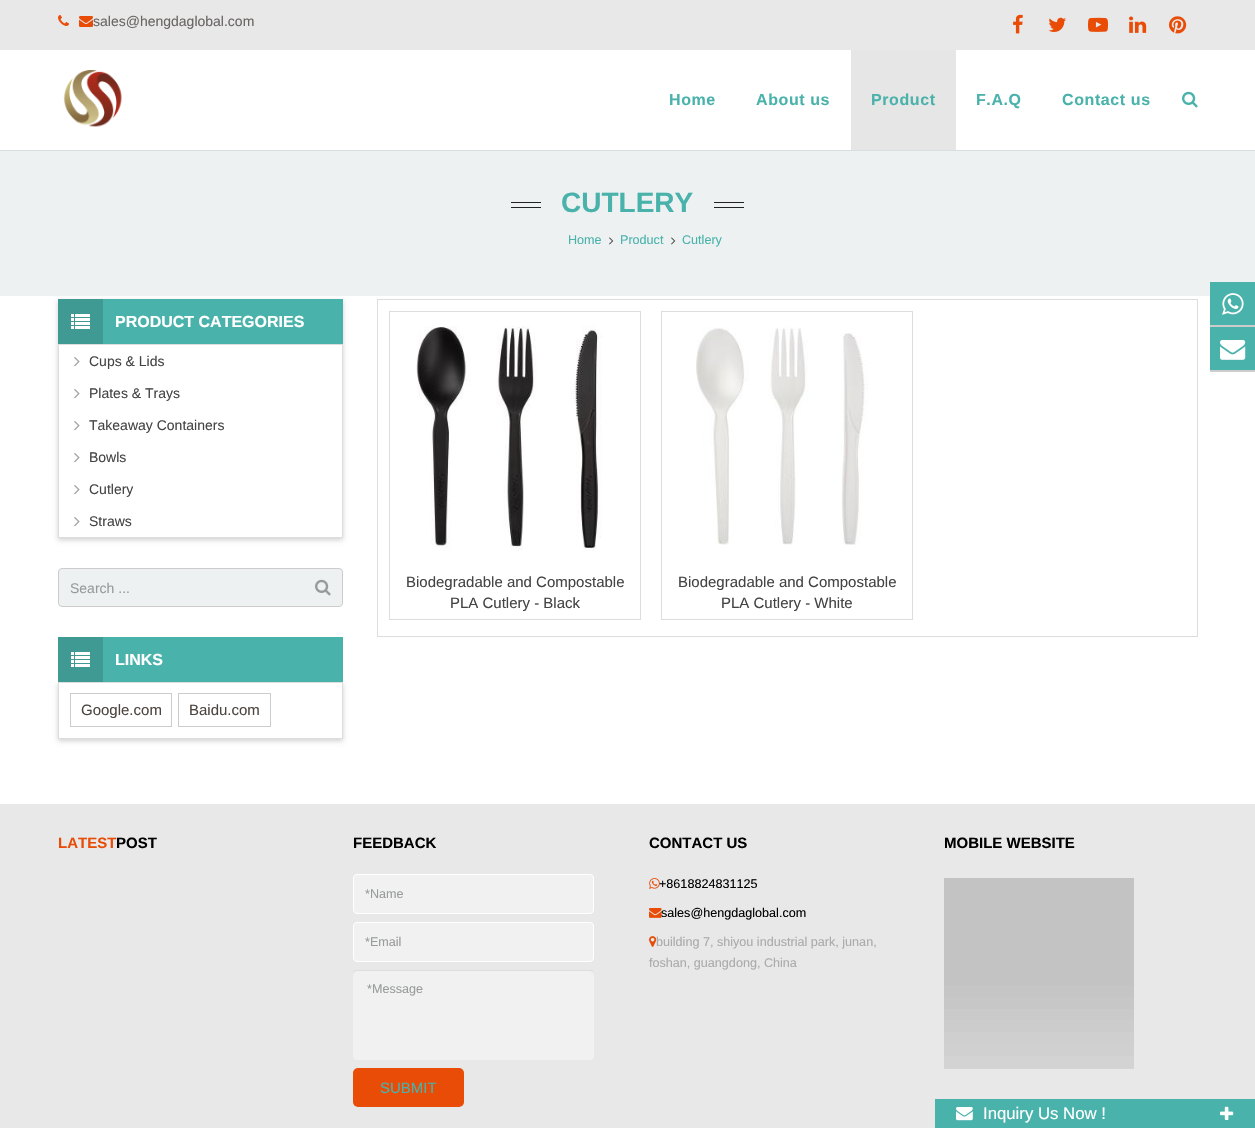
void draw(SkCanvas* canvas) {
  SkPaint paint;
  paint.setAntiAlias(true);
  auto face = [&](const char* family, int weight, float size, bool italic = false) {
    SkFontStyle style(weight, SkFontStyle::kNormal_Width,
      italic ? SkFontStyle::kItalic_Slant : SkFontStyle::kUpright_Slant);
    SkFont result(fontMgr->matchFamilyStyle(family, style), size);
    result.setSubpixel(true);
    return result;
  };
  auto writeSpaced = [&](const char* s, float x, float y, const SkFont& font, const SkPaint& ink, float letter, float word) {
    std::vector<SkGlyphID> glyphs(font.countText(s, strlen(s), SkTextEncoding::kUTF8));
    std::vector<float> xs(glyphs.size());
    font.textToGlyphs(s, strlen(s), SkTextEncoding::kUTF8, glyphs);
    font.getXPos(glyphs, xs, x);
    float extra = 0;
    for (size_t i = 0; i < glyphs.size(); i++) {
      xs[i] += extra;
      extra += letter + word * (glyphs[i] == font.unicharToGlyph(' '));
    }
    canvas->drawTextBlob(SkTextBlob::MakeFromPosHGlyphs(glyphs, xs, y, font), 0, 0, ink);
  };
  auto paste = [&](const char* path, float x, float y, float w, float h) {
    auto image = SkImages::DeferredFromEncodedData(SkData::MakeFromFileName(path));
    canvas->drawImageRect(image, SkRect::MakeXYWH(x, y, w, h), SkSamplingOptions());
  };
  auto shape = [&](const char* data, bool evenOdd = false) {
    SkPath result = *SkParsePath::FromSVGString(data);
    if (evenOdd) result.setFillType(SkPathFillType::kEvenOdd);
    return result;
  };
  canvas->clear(0xffffffff);
  paint.setColor(0xffe8e8e8);
  canvas->drawRect(SkRect::MakeXYWH(0, 0, 1255, 50), paint);
  paste("img/1.png", 58, 15, 11, 11);
  paste("img/2.png", 79, 16, 14, 11);
  paste("img/3.png", 1013, 14, 10, 20);
  paste("img/4.png", 1048, 17, 18, 15);
  paste("img/5.png", 1088, 17, 20, 15);
  paste("img/6.png", 1129, 16, 18, 17);
  paste("img/7.png", 1169, 16, 18, 18);
  paint.setColor(0xffdadedf);
  canvas->drawRect(SkRect::MakeXYWH(0, 150, 1255, 1), paint);
  paste("img/8.png", 63, 70, 59, 57);
  paint.setColor(0xffe6e6e6);
  canvas->drawRect(SkRect::MakeXYWH(851, 50, 105, 100), paint);
  paste("img/9.png", 1182, 91, 16, 17);
  canvas->save();
  canvas->clipPath(shape("M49 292H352V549H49ZM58 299H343V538H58Z", true), true);
  paint.setColor(0x2e000000);
  paint.setMaskFilter(SkMaskFilter::MakeBlur(kNormal_SkBlurStyle, 2.5f));
  canvas->drawRect(SkRect::MakeXYWH(58, 301, 285, 239), paint);
  paint.setMaskFilter(nullptr);
  canvas->restore();
  {
    const struct { float x, y, w, h; SkColor color; } items[] = {
      {0, 151, 1255, 145, 0xffedf1f2},
      {511, 202, 30, 1, 0xff222222},
      {511, 207, 30, 1, 0xff222222},
      {714, 202, 30, 1, 0xff222222},
      {714, 207, 30, 1, 0xff222222},
    };
    for (auto [x, y, w, h, color] : items) {
      paint.setColor(color);
      canvas->drawRect(SkRect::MakeXYWH(x, y, w, h), paint);
    }
  }
  paste("img/10.png", 609, 237, 5, 8);
  paste("img/10.png", 671, 237, 5, 8);
  paint.setColor(0xff49b2ab);
  canvas->drawRect(SkRect::MakeXYWH(103, 299, 240, 45), paint);
  paint.setColor(0xff3f9a94);
  canvas->drawRect(SkRect::MakeXYWH(58, 299, 45, 45), paint);
  paste("img/11.png", 71, 314, 19, 15);
  paint.setStroke(true);
  paint.setStrokeWidth(1);
  paint.setColor(0xffdddddd);
  canvas->drawRect(SkRect::MakeXYWH(58.5f, 344.5f, 284, 193), paint);
  paste("img/12.png", 74, 357, 6, 10);
  paste("img/12.png", 74, 389, 6, 10);
  paste("img/12.png", 74, 421, 6, 10);
  paste("img/12.png", 74, 453, 6, 10);
  paste("img/12.png", 74, 485, 6, 10);
  paste("img/12.png", 74, 517, 6, 10);
  paint.setStroke(false);
  paint.setColor(0xffedf1f2);
  canvas->drawRoundRect(SkRect::MakeXYWH(58.5f, 568.5f, 284, 38), 3.5f, 3.5f, paint);
  paint.setStroke(true);
  paint.setColor(0xffcccccc);
  canvas->drawRoundRect(SkRect::MakeXYWH(58.5f, 568.5f, 284, 38), 3.5f, 3.5f, paint);
  paste("img/13.png", 315, 579, 16, 17);
  canvas->save();
  canvas->clipPath(shape("M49 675H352V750H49ZM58 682H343V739H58Z", true), true);
  paint.setStroke(false);
  paint.setColor(0x2e000000);
  paint.setMaskFilter(SkMaskFilter::MakeBlur(kNormal_SkBlurStyle, 2.5f));
  canvas->drawRect(SkRect::MakeXYWH(58, 684, 285, 57), paint);
  paint.setMaskFilter(nullptr);
  canvas->restore();
  paint.setColor(0xff49b2ab);
  canvas->drawRect(SkRect::MakeXYWH(103, 637, 240, 45), paint);
  paint.setColor(0xff3f9a94);
  canvas->drawRect(SkRect::MakeXYWH(58, 637, 45, 45), paint);
  paste("img/11.png", 71, 652, 19, 15);
  paint.setStroke(true);
  paint.setColor(0xffdddddd);
  canvas->drawRect(SkRect::MakeXYWH(58.5f, 682.5f, 284, 56), paint);
  paint.setColor(0xffcccccc);
  canvas->drawRect(SkRect::MakeXYWH(70.5f, 693.5f, 101, 33), paint);
  canvas->drawRect(SkRect::MakeXYWH(178.5f, 693.5f, 92, 33), paint);
  paint.setColor(0xffdddddd);
  canvas->drawRect(SkRect::MakeXYWH(377.5f, 299.5f, 820, 337), paint);
  canvas->drawRect(SkRect::MakeXYWH(389.5f, 311.5f, 251, 308), paint);
  paste("img/14.png", 416, 326, 186, 225);
  canvas->drawRect(SkRect::MakeXYWH(661.5f, 311.5f, 251, 308), paint);
  paste("img/15.png", 696, 326, 172, 219);
  paint.setStroke(false);
  paint.setColor(0xff49b2ab);
  canvas->drawRect(SkRect::MakeXYWH(1210, 282, 45, 88), paint);
  paint.setColor(0xffcccccc);
  canvas->drawRect(SkRect::MakeXYWH(1210, 325, 45, 2), paint);
  paste("img/16.png", 1222, 293, 22, 22);
  canvas->drawRect(SkRect::MakeXYWH(1210, 370, 45, 2), paint);
  paste("img/17.png", 1220, 340, 26, 20);
  paint.setColor(0xffe8e8e8);
  canvas->drawRect(SkRect::MakeXYWH(0, 804, 1255, 324), paint);
  paint.setColor(0xfff1f1f1);
  canvas->drawRoundRect(SkRect::MakeXYWH(353.5f, 874.5f, 240, 39), 3.5f, 3.5f, paint);
  paint.setStroke(true);
  paint.setColor(0xffffffff);
  canvas->drawRoundRect(SkRect::MakeXYWH(353.5f, 874.5f, 240, 39), 3.5f, 3.5f, paint);
  paint.setStroke(false);
  paint.setColor(0xfff1f1f1);
  canvas->drawRoundRect(SkRect::MakeXYWH(353.5f, 922.5f, 240, 39), 3.5f, 3.5f, paint);
  paint.setStroke(true);
  paint.setColor(0xffffffff);
  canvas->drawRoundRect(SkRect::MakeXYWH(353.5f, 922.5f, 240, 39), 3.5f, 3.5f, paint);
  paint.setStroke(false);
  paint.setColor(0xfff1f1f1);
  canvas->drawRoundRect(SkRect::MakeXYWH(353, 970, 241, 90), 4, 4, paint);
  paint.setColor(0x14000000);
  canvas->drawPath(shape("M357 971H590C592 971 594 973 594 975C594 972 593 970 590 970H357C354 970 353 972 353 975C353 973 355 971 357 971Z"), paint);
  paint.setColor(0xffe94c07);
  canvas->drawRoundRect(SkRect::MakeXYWH(353, 1068, 111, 39), 5, 5, paint);
  paste("img/18.png", 649, 878, 11, 11);
  paste("img/19.png", 649, 908, 13, 10);
  paste("img/20.png", 649, 936, 8, 11);
  paste("img/21.png", 944, 878, 190, 191);
  paint.setColor(0xff49b2ab);
  canvas->drawRect(SkRect::MakeXYWH(935, 1099, 320, 29), paint);
  paste("img/22.png", 956, 1107, 17, 14);
  paste("img/23.png", 1220, 1106, 14, 14);
  auto f0 = face("Liberation Sans", 400, 14);
  paint.setColor(0xff6a6565);
  canvas->drawString("sales@hengdaglobal.com", 93, 26, f0, paint);
  auto f1 = face("Liberation Sans", 700, 16);
  paint.setColor(0xff49b2ab);
  {
    const struct { const char* s; float x, y; } items[] = {
      {"Home", 669, 105},
      {"About us", 756, 105},
      {"Product", 871, 105},
      {"F.A.Q", 976, 105},
      {"Contact us", 1062, 105},
    };
    for (auto [s, x, y] : items) {
      writeSpaced(s, x, y, f1, paint, 0.6f, 0);
    }
  }
  auto f2 = face("Liberation Sans", 700, 28);
  canvas->drawString("CUTLERY", 561, 212, f2, paint);
  auto f3 = face("Liberation Sans", 400, 12.6f);
  {
    const struct { const char* s; float x, y; } items[] = {
      {"Home", 568, 244},
      {"Product", 620, 244},
      {"Cutlery", 682, 244},
    };
    for (auto [s, x, y] : items) {
      canvas->drawString(s, x, y, f3, paint);
    }
  }
  paint.setColor(0xffffffff);
  canvas->drawString("PRODUCT CATEGORIES", 115, 327, f1, paint);
  paint.setColor(0xff444444);
  {
    const struct { const char* s; float x, y; } items[] = {
      {"Cups & Lids", 89, 366},
      {"Plates & Trays", 89, 398},
      {"Takeaway Containers", 89, 430},
      {"Bowls", 89, 462},
      {"Cutlery", 89, 494},
      {"Straws", 89, 526},
    };
    for (auto [s, x, y] : items) {
      canvas->drawString(s, x, y, f0, paint);
    }
  }
  paint.setColor(0xff999b9b);
  canvas->drawString("Search ...", 70, 593, f0, paint);
  paint.setColor(0xffffffff);
  canvas->drawString("LINKS", 115, 665, f1, paint);
  auto f4 = face("Liberation Sans", 400, 15);
  paint.setColor(0xff4e4540);
  canvas->drawString("Google.com", 81, 715, f4, paint);
  canvas->drawString("Baidu.com", 189, 715, f4, paint);
  paint.setColor(0xff444444);
  {
    const struct { const char* s; float x, y; } items[] = {
      {"Biodegradable and Compostable", 406, 587},
      {"PLA Cutlery - Black", 450, 608},
      {"Biodegradable and Compostable", 678, 587},
      {"PLA Cutlery - White", 721, 608},
    };
    for (auto [s, x, y] : items) {
      canvas->drawString(s, x, y, f4, paint);
    }
  }
  auto f5 = face("Liberation Sans", 700, 15);
  paint.setColor(0xffe94c07);
  canvas->drawString("LATEST", 58, 848, f5, paint);
  paint.setColor(0xff000000);
  canvas->drawString("POST", 116, 848, f5, paint);
  canvas->drawString("FEEDBACK", 353, 848, f5, paint);
  paint.setColor(0xff999b9b);
  {
    const struct { const char* s; float x, y; } items[] = {
      {"*Name", 365, 898},
      {"*Email", 365, 946},
      {"*Message", 367, 993},
    };
    for (auto [s, x, y] : items) {
      canvas->drawString(s, x, y, f3, paint);
    }
  }
  paint.setColor(0xff49b2ab);
  canvas->drawString("SUBMIT", 380, 1093, f4, paint);
  paint.setColor(0xff000000);
  canvas->drawString("CONTACT US", 649, 848, f5, paint);
  canvas->drawString("+8618824831125", 659, 888, f3, paint);
  canvas->drawString("sales@hengdaglobal.com", 661, 917, f3, paint);
  paint.setColor(0xffaaaaaa);
  canvas->drawString("building 7, shiyou industrial park, junan,", 656, 946, f3, paint);
  canvas->drawString("foshan, guangdong, China", 649, 967, f3, paint);
  paint.setColor(0xff000000);
  canvas->drawString("MOBILE WEBSITE", 944, 848, f5, paint);
  auto f6 = face("Liberation Sans", 400, 16.75f);
  paint.setColor(0xffffffff);
  canvas->drawString("Inquiry Us Now !", 983, 1119, f6, paint);
}
